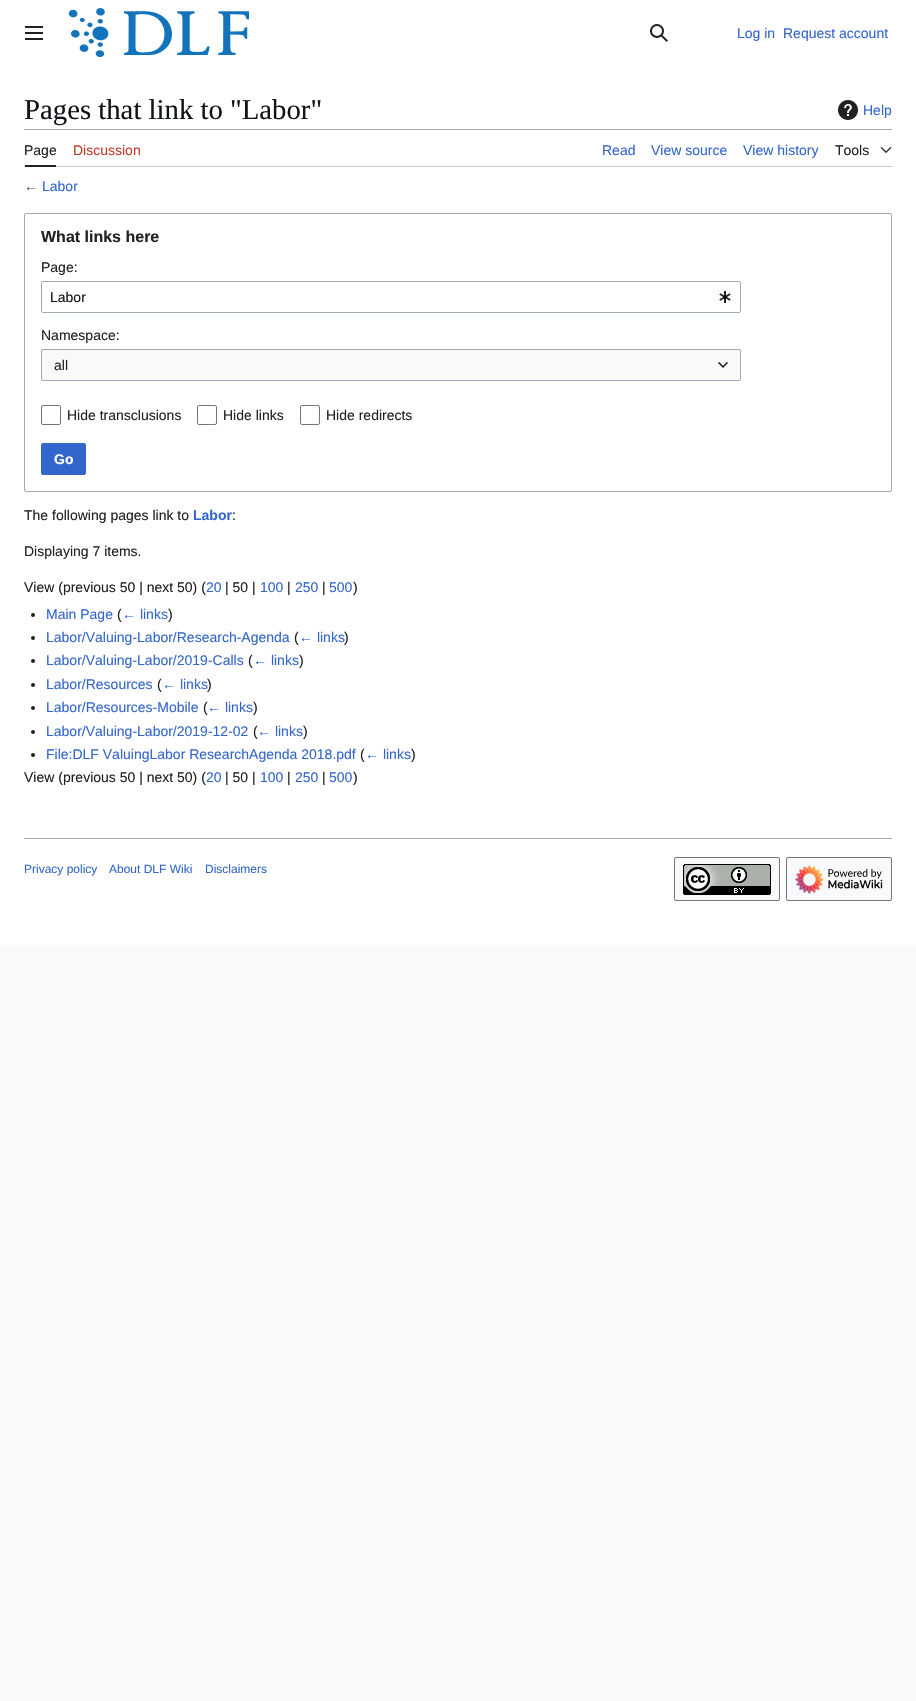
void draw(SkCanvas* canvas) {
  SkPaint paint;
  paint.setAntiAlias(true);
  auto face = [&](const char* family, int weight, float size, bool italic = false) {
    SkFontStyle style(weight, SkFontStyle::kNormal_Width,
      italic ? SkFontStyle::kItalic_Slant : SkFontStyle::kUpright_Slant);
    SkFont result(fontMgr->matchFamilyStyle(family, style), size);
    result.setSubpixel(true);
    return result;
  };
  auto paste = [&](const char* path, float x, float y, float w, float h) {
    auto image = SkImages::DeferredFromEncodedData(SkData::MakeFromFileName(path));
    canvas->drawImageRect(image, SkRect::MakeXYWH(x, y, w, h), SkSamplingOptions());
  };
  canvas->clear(0xfff8f9fa);
  paint.setColor(0xffffffff);
  canvas->drawRect(SkRect::MakeXYWH(0, 0, 916, 945), paint);
  paste("img/1.png", 25, 26, 18, 14);
  paste("img/2.png", 68, 8, 41, 50);
  paste("img/3.png", 124, 11, 125, 45);
  paste("img/4.png", 650, 24, 18, 18);
  paste("img/5.png", 838, 100, 20, 20);
  {
    const struct { float x, y, w, h; SkColor color; } items[] = {
      {24, 129, 868, 1, 0xffa2a9b1},
      {24, 166, 868, 1, 0xffc8ccd1},
      {25, 165, 31, 2, 0xff202122},
    };
    for (auto [x, y, w, h, color] : items) {
      paint.setColor(color);
      canvas->drawRect(SkRect::MakeXYWH(x, y, w, h), paint);
    }
  }
  paste("img/6.png", 880, 147, 12, 6);
  paint.setStroke(true);
  paint.setStrokeWidth(1);
  paint.setColor(0xffa2a9b1);
  canvas->drawRoundRect(SkRect::MakeXYWH(24.5f, 213.5f, 867, 278), 1.5f, 1.5f, paint);
  canvas->drawRoundRect(SkRect::MakeXYWH(41.5f, 281.5f, 699, 31), 1.5f, 1.5f, paint);
  paste("img/7.png", 719, 291, 12, 12);
  paint.setStroke(false);
  paint.setColor(0xfff8f9fa);
  canvas->drawRect(SkRect::MakeXYWH(41, 349, 700, 32), paint);
  paint.setStroke(true);
  paint.setColor(0xffa2a9b1);
  canvas->drawRoundRect(SkRect::MakeXYWH(41.5f, 349.5f, 699, 31), 1.5f, 1.5f, paint);
  paste("img/8.png", 718, 362, 10, 6);
  paint.setColor(0xff72777d);
  canvas->drawRoundRect(SkRect::MakeXYWH(41.5f, 405.5f, 19, 19), 1.5f, 1.5f, paint);
  canvas->drawRoundRect(SkRect::MakeXYWH(197.5f, 405.5f, 19, 19), 1.5f, 1.5f, paint);
  canvas->drawRoundRect(SkRect::MakeXYWH(300.5f, 405.5f, 19, 19), 1.5f, 1.5f, paint);
  paint.setStroke(false);
  paint.setColor(0xff3366cc);
  canvas->drawRoundRect(SkRect::MakeXYWH(41.5f, 443.5f, 44, 31), 1.5f, 1.5f, paint);
  paint.setStroke(true);
  canvas->drawRoundRect(SkRect::MakeXYWH(41.5f, 443.5f, 44, 31), 1.5f, 1.5f, paint);
  paint.setStroke(false);
  paint.setColor(0xff202122);
  canvas->drawCircle(33, 615, 2, paint);
  canvas->drawCircle(33, 638, 2, paint);
  canvas->drawCircle(33, 661, 2, paint);
  canvas->drawCircle(33, 685, 2, paint);
  canvas->drawCircle(33, 708, 2, paint);
  canvas->drawCircle(33, 732, 2, paint);
  canvas->drawCircle(33, 755, 2, paint);
  paint.setColor(0xffa2a9b1);
  canvas->drawRect(SkRect::MakeXYWH(24, 838, 868, 1), paint);
  paint.setColor(0xfff8f9fa);
  canvas->drawRoundRect(SkRect::MakeXYWH(674.5f, 857.5f, 105, 43), 1.5f, 1.5f, paint);
  paint.setStroke(true);
  paint.setColor(0xff72777d);
  canvas->drawRoundRect(SkRect::MakeXYWH(674.5f, 857.5f, 105, 43), 1.5f, 1.5f, paint);
  paste("img/9.png", 683, 864, 88, 31);
  paint.setStroke(false);
  paint.setColor(0xfff8f9fa);
  canvas->drawRoundRect(SkRect::MakeXYWH(786.5f, 857.5f, 105, 43), 1.5f, 1.5f, paint);
  paint.setStroke(true);
  paint.setColor(0xff72777d);
  canvas->drawRoundRect(SkRect::MakeXYWH(786.5f, 857.5f, 105, 43), 1.5f, 1.5f, paint);
  paste("img/10.png", 795, 865, 88, 29);
  auto f0 = face("Liberation Sans", 400, 14);
  paint.setStroke(false);
  paint.setColor(0xff3366cc);
  canvas->drawString("Log in", 737, 38, f0, paint);
  canvas->drawString("Request account", 783, 38, f0, paint);
  auto f1 = face("Liberation Serif", 400, 28.75f);
  paint.setColor(0xff101418);
  canvas->drawString("Pages that link to \"Labor\"", 24, 119, f1, paint);
  paint.setColor(0xff3366cc);
  canvas->drawString("Help", 863, 115, f0, paint);
  paint.setColor(0xff202122);
  canvas->drawString("Page", 24, 155, f0, paint);
  paint.setColor(0xffbf3c2c);
  canvas->drawString("Discussion", 73, 155, f0, paint);
  paint.setColor(0xff3366cc);
  {
    const struct { const char* s; float x, y; } items[] = {
      {"Read", 602, 155},
      {"View source", 651, 155},
      {"View history", 743, 155},
    };
    for (auto [s, x, y] : items) {
      canvas->drawString(s, x, y, f0, paint);
    }
  }
  paint.setColor(0xff202122);
  canvas->drawString("Tools", 835, 155, f0, paint);
  paint.setColor(0xff54595d);
  canvas->drawString("←", 24, 191, f0, paint);
  paint.setColor(0xff3366cc);
  canvas->drawString("Labor", 42, 191, f0, paint);
  auto f2 = face("Liberation Sans", 700, 16);
  paint.setColor(0xff202122);
  canvas->drawString("What links here", 41, 242, f2, paint);
  canvas->drawString("Page:", 41, 272, f0, paint);
  paint.setColor(0xff101418);
  canvas->drawString("Labor", 50, 302, f0, paint);
  paint.setColor(0xff202122);
  {
    const struct { const char* s; float x, y; } items[] = {
      {"Namespace:", 41, 340},
      {"all", 54, 370},
      {"Hide transclusions", 67, 420},
      {"Hide links", 223, 420},
      {"Hide redirects", 326, 420},
    };
    for (auto [s, x, y] : items) {
      canvas->drawString(s, x, y, f0, paint);
    }
  }
  auto f3 = face("Liberation Sans", 700, 14);
  paint.setColor(0xffffffff);
  canvas->drawString("Go", 54, 464, f3, paint);
  paint.setColor(0xff202122);
  canvas->drawString("The following pages link to", 24, 520, f0, paint);
  paint.setColor(0xff3366cc);
  canvas->drawString("Labor", 193, 520, f3, paint);
  paint.setColor(0xff202122);
  {
    const struct { const char* s; float x, y; } items[] = {
      {":", 232, 520},
      {"Displaying 7 items.", 24, 556},
      {"View (previous 50 | next 50) (", 24, 592},
    };
    for (auto [s, x, y] : items) {
      canvas->drawString(s, x, y, f0, paint);
    }
  }
  paint.setColor(0xff3366cc);
  canvas->drawString("20", 206, 592, f0, paint);
  paint.setColor(0xff202122);
  canvas->drawString("| 50 |", 225, 592, f0, paint);
  paint.setColor(0xff3366cc);
  canvas->drawString("100", 260, 592, f0, paint);
  paint.setColor(0xff202122);
  canvas->drawString("|", 287, 592, f0, paint);
  paint.setColor(0xff3366cc);
  canvas->drawString("250", 295, 592, f0, paint);
  paint.setColor(0xff202122);
  canvas->drawString("|", 322, 592, f0, paint);
  paint.setColor(0xff3366cc);
  canvas->drawString("500", 329, 592, f0, paint);
  paint.setColor(0xff202122);
  canvas->drawString(")", 353, 592, f0, paint);
  paint.setColor(0xff3366cc);
  canvas->drawString("Main Page", 46, 619, f0, paint);
  paint.setColor(0xff202122);
  canvas->drawString("(", 117, 619, f0, paint);
  paint.setColor(0xff3366cc);
  canvas->drawString("← links", 122, 619, f0, paint);
  paint.setColor(0xff202122);
  canvas->drawString(")", 168, 619, f0, paint);
  paint.setColor(0xff3366cc);
  canvas->drawString("Labor/Valuing-Labor/Research-Agenda", 46, 642, f0, paint);
  paint.setColor(0xff202122);
  canvas->drawString("(", 294, 642, f0, paint);
  paint.setColor(0xff3366cc);
  canvas->drawString("← links", 299, 642, f0, paint);
  paint.setColor(0xff202122);
  canvas->drawString(")", 344, 642, f0, paint);
  paint.setColor(0xff3366cc);
  canvas->drawString("Labor/Valuing-Labor/2019-Calls", 46, 665, f0, paint);
  paint.setColor(0xff202122);
  canvas->drawString("(", 248, 665, f0, paint);
  paint.setColor(0xff3366cc);
  canvas->drawString("← links", 253, 665, f0, paint);
  paint.setColor(0xff202122);
  canvas->drawString(")", 299, 665, f0, paint);
  paint.setColor(0xff3366cc);
  canvas->drawString("Labor/Resources", 46, 689, f0, paint);
  paint.setColor(0xff202122);
  canvas->drawString("(", 157, 689, f0, paint);
  paint.setColor(0xff3366cc);
  canvas->drawString("← links", 162, 689, f0, paint);
  paint.setColor(0xff202122);
  canvas->drawString(")", 207, 689, f0, paint);
  paint.setColor(0xff3366cc);
  canvas->drawString("Labor/Resources-Mobile", 46, 712, f0, paint);
  paint.setColor(0xff202122);
  canvas->drawString("(", 203, 712, f0, paint);
  paint.setColor(0xff3366cc);
  canvas->drawString("← links", 207, 712, f0, paint);
  paint.setColor(0xff202122);
  canvas->drawString(")", 253, 712, f0, paint);
  paint.setColor(0xff3366cc);
  canvas->drawString("Labor/Valuing-Labor/2019-12-02", 46, 736, f0, paint);
  paint.setColor(0xff202122);
  canvas->drawString("(", 253, 736, f0, paint);
  paint.setColor(0xff3366cc);
  canvas->drawString("← links", 257, 736, f0, paint);
  paint.setColor(0xff202122);
  canvas->drawString(")", 303, 736, f0, paint);
  paint.setColor(0xff3366cc);
  canvas->drawString("File:DLF ValuingLabor ResearchAgenda 2018.pdf", 46, 759, f0, paint);
  paint.setColor(0xff202122);
  canvas->drawString("(", 360, 759, f0, paint);
  paint.setColor(0xff3366cc);
  canvas->drawString("← links", 365, 759, f0, paint);
  paint.setColor(0xff202122);
  canvas->drawString(")", 411, 759, f0, paint);
  canvas->drawString("View (previous 50 | next 50) (", 24, 782, f0, paint);
  paint.setColor(0xff3366cc);
  canvas->drawString("20", 206, 782, f0, paint);
  paint.setColor(0xff202122);
  canvas->drawString("| 50 |", 225, 782, f0, paint);
  paint.setColor(0xff3366cc);
  canvas->drawString("100", 260, 782, f0, paint);
  paint.setColor(0xff202122);
  canvas->drawString("|", 287, 782, f0, paint);
  paint.setColor(0xff3366cc);
  canvas->drawString("250", 295, 782, f0, paint);
  paint.setColor(0xff202122);
  canvas->drawString("|", 322, 782, f0, paint);
  paint.setColor(0xff3366cc);
  canvas->drawString("500", 329, 782, f0, paint);
  paint.setColor(0xff202122);
  canvas->drawString(")", 353, 782, f0, paint);
  auto f4 = face("Liberation Sans", 400, 12);
  paint.setColor(0xff3366cc);
  {
    const struct { const char* s; float x, y; } items[] = {
      {"Privacy policy", 24, 873},
      {"About DLF Wiki", 109, 873},
      {"Disclaimers", 205, 873},
    };
    for (auto [s, x, y] : items) {
      canvas->drawString(s, x, y, f4, paint);
    }
  }
}
